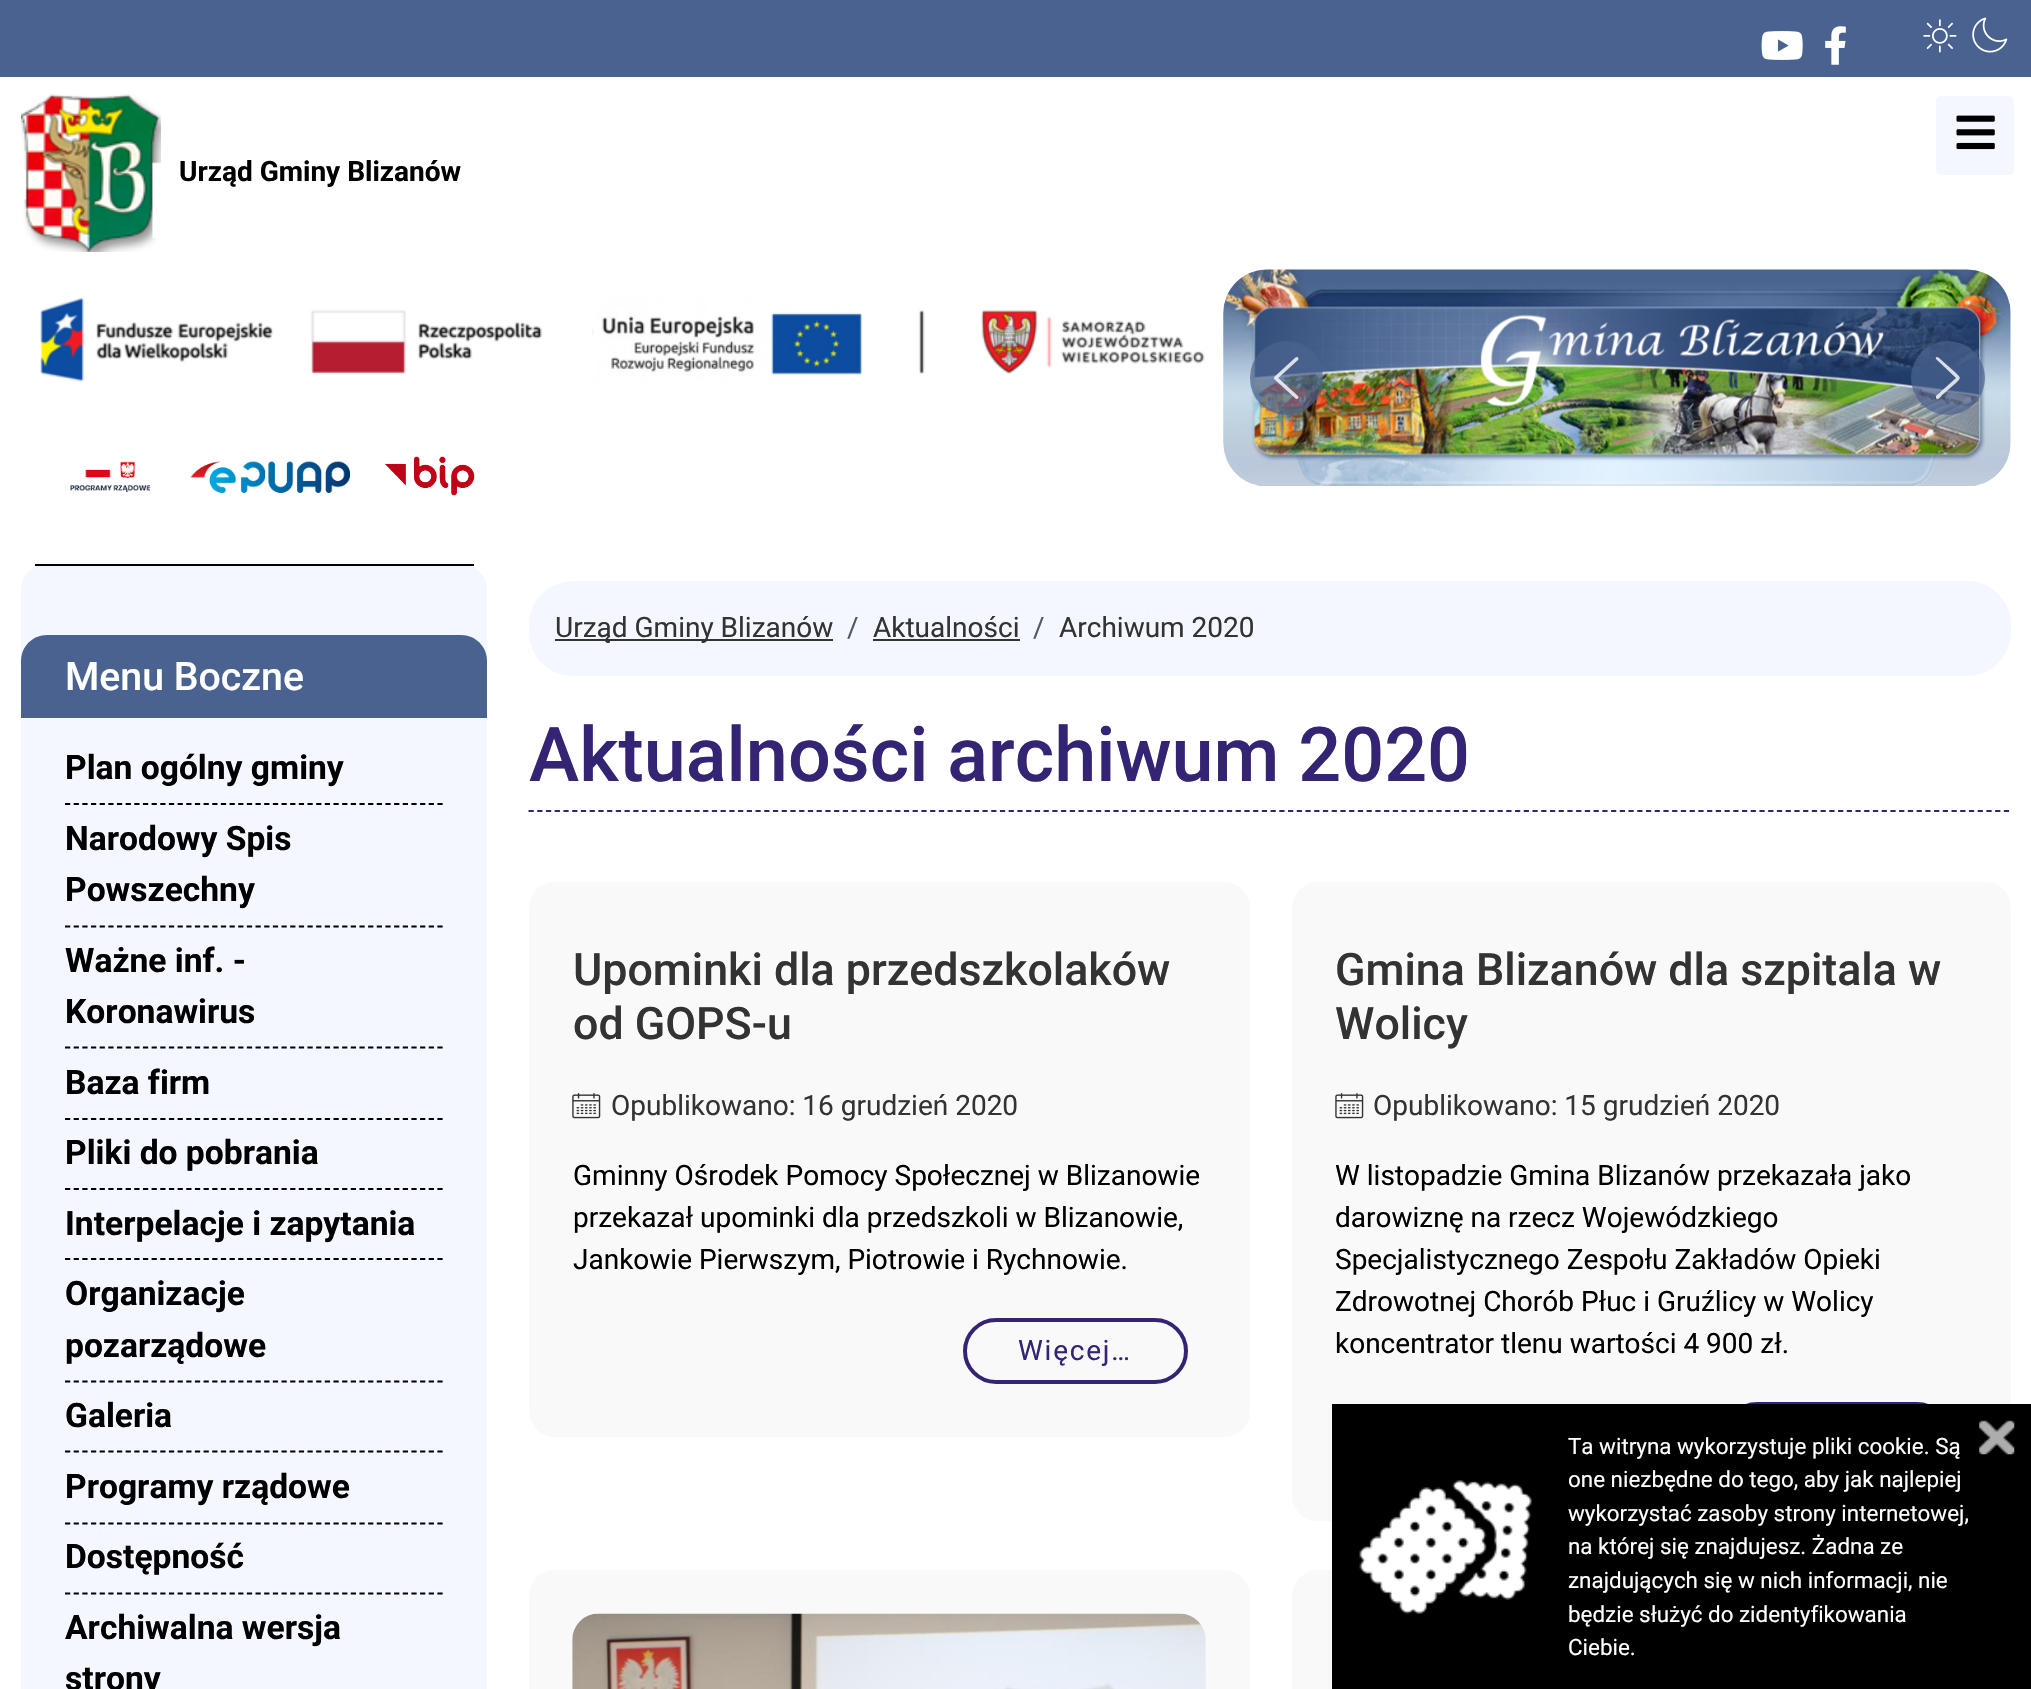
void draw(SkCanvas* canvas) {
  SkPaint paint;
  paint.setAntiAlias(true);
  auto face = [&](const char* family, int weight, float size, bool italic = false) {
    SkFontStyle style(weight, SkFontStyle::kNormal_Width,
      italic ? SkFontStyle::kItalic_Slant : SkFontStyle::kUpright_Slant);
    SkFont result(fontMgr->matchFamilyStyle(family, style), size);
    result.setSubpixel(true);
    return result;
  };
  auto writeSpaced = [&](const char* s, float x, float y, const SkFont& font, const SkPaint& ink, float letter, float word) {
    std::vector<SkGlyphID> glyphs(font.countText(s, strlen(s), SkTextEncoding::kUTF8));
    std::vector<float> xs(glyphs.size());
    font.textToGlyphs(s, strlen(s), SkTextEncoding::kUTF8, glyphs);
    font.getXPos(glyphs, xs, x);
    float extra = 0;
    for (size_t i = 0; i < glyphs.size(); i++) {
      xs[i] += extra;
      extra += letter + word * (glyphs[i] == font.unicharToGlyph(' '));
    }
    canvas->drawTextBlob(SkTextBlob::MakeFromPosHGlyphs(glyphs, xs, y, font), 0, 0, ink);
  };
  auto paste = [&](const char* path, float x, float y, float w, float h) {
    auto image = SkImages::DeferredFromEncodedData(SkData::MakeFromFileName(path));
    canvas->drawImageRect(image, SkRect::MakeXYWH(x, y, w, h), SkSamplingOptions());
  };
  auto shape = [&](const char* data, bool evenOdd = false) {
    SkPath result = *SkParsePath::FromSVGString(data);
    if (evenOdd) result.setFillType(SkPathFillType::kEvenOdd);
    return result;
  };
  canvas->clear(0xffffffff);
  paint.setColor(0xff4a628f);
  canvas->drawRect(SkRect::MakeXYWH(0, 0, 2031, 77), paint);
  paste("img/1.png", 1761, 31, 42, 29);
  paste("img/2.png", 1825, 26, 21, 39);
  paste("img/3.png", 1923, 19, 34, 34);
  paste("img/4.png", 1972, 17, 36, 36);
  paste("img/5.png", 21, 94, 140, 158);
  paste("img/6.png", 40, 297, 1165, 85);
  paste("img/7.png", 70, 461, 80, 31);
  paste("img/8.png", 190, 461, 160, 32);
  paste("img/9.png", 385, 456, 90, 40);
  paste("img/10.png", 1223, 269, 788, 217);
  paint.setColor(0xb34a628f);
  canvas->drawRoundRect(SkRect::MakeXYWH(1250, 341, 73, 74), 36.5f, 36.5f, paint);
  paste("img/11.png", 1274, 357, 25, 42);
  canvas->drawCircle(1948, 378, 37, paint);
  paint.setColor(0xccffffff);
  canvas->drawPath(shape("M1939 358C1937 356 1935 357 1936 359L1956 378L1936 396V398C1937 401 1942 396 1942 395L1956 383C1961 378 1961 378 1956 373Z", true), paint);
  paint.setColor(0xfff4f7ff);
  canvas->drawRoundRect(SkRect::MakeXYWH(1936, 96, 78, 79), 5, 5, paint);
  paste("img/12.png", 1956, 115, 39, 35);
  canvas->drawRoundRect(SkRect::MakeXYWH(21, 564, 466, 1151), 26, 26, paint);
  paint.setColor(0xff000000);
  canvas->drawRect(SkRect::MakeXYWH(35, 564, 439, 2), paint);
  paint.setColor(0xff4a628f);
  canvas->drawPath(shape("M47 635H461C475.5 635 487 646.5 487 661V718H21V661C21 646.5 32.5 635 47 635Z"), paint);
  paint.setStroke(true);
  paint.setStrokeWidth(1.8f);
  paint.setColor(0xff000000);
  paint.setPathEffect(SkDashPathEffect::Make({{5.25f, 3.41f}}, 0));
  canvas->drawPath(shape("M65 804H443"), paint);
  paint.setPathEffect(nullptr);
  paint.setPathEffect(SkDashPathEffect::Make({{5.25f, 3.41f}}, 0));
  canvas->drawPath(shape("M65 926.5H443"), paint);
  paint.setPathEffect(nullptr);
  paint.setPathEffect(SkDashPathEffect::Make({{5.25f, 3.41f}}, 0));
  canvas->drawPath(shape("M65 1047.5H443"), paint);
  paint.setPathEffect(nullptr);
  paint.setPathEffect(SkDashPathEffect::Make({{5.25f, 3.41f}}, 0));
  canvas->drawPath(shape("M65 1119H443"), paint);
  paint.setPathEffect(nullptr);
  paint.setPathEffect(SkDashPathEffect::Make({{5.25f, 3.41f}}, 0));
  canvas->drawPath(shape("M65 1189H443"), paint);
  paint.setPathEffect(nullptr);
  paint.setPathEffect(SkDashPathEffect::Make({{5.25f, 3.41f}}, 0));
  canvas->drawPath(shape("M65 1259H443"), paint);
  paint.setPathEffect(nullptr);
  paint.setPathEffect(SkDashPathEffect::Make({{5.25f, 3.41f}}, 0));
  canvas->drawPath(shape("M65 1381.5H443"), paint);
  paint.setPathEffect(nullptr);
  paint.setPathEffect(SkDashPathEffect::Make({{5.25f, 3.41f}}, 0));
  canvas->drawPath(shape("M65 1451.5H443"), paint);
  paint.setPathEffect(nullptr);
  paint.setPathEffect(SkDashPathEffect::Make({{5.25f, 3.41f}}, 0));
  canvas->drawPath(shape("M65 1523.5H443"), paint);
  paint.setPathEffect(nullptr);
  paint.setPathEffect(SkDashPathEffect::Make({{5.25f, 3.41f}}, 0));
  canvas->drawPath(shape("M65 1593.5H443"), paint);
  paint.setPathEffect(nullptr);
  paint.setStroke(false);
  paint.setColor(0xfff4f7ff);
  canvas->drawRoundRect(SkRect::MakeXYWH(529, 581, 1482, 95), 44, 44, paint);
  paint.setColor(0xff333333);
  canvas->drawRect(SkRect::MakeXYWH(555, 639, 278, 2), paint);
  canvas->drawRect(SkRect::MakeXYWH(873, 639, 147, 2), paint);
  paint.setStroke(true);
  paint.setColor(0xff352474);
  paint.setPathEffect(SkDashPathEffect::Make({{5.25f, 3.48f}}, 0));
  canvas->drawPath(shape("M528.5 811H2011"), paint);
  paint.setPathEffect(nullptr);
  paint.setStroke(false);
  paint.setColor(0xfff9f9f9);
  canvas->drawRoundRect(SkRect::MakeXYWH(529, 882, 721, 555), 26, 26, paint);
  paste("img/13.png", 572, 1093, 29, 26);
  paint.setStroke(true);
  paint.setStrokeWidth(4);
  paint.setColor(0xff352474);
  canvas->drawRoundRect(SkRect::MakeXYWH(965, 1320, 221, 62), 31, 31, paint);
  paint.setStroke(false);
  paint.setColor(0xfff9f9f9);
  canvas->drawRoundRect(SkRect::MakeXYWH(1292, 882, 719, 639), 26, 26, paint);
  paste("img/13.png", 1335, 1093, 29, 26);
  paint.setStroke(true);
  paint.setColor(0xff352474);
  canvas->drawRoundRect(SkRect::MakeXYWH(1726, 1404, 222, 62), 31, 31, paint);
  paint.setStroke(false);
  paint.setColor(0xfff9f9f9);
  canvas->drawRoundRect(SkRect::MakeXYWH(529, 1570, 721, 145), 26, 26, paint);
  paste("img/14.png", 572, 1613, 634, 76);
  canvas->drawRoundRect(SkRect::MakeXYWH(1292, 1570, 719, 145), 26, 26, paint);
  paint.setColor(0xff000000);
  canvas->drawRect(SkRect::MakeXYWH(1332, 1404, 699, 285), paint);
  paste("img/15.png", 1359, 1480, 173, 134);
  paste("img/16.png", 1979, 1420, 36, 35);
  auto f0 = face("Roboto", 700, 28);
  canvas->drawString("Urząd Gminy Blizanów", 179, 181, f0, paint);
  auto f1 = face("Roboto", 500, 39.25f);
  paint.setColor(0xffffffff);
  canvas->drawString("Menu Boczne", 65, 690, f1, paint);
  auto f2 = face("Roboto", 700, 33.6f);
  paint.setColor(0xff000000);
  {
    const struct { const char* s; float x, y; } items[] = {
      {"Plan ogólny gminy", 65, 779},
      {"Narodowy Spis", 65, 850},
      {"Powszechny", 65, 901},
      {"Ważne inf. -", 65, 972},
      {"Koronawirus", 65, 1023},
      {"Baza firm", 65, 1094},
      {"Pliki do pobrania", 65, 1164},
      {"Interpelacje i zapytania", 65, 1235},
      {"Organizacje", 65, 1305},
      {"pozarządowe", 65, 1357},
      {"Galeria", 65, 1427},
      {"Programy rządowe", 65, 1498},
      {"Dostępność", 65, 1568},
      {"Archiwalna wersja", 65, 1639},
      {"strony", 65, 1690},
    };
    for (auto [s, x, y] : items) {
      canvas->drawString(s, x, y, f2, paint);
    }
  }
  auto f3 = face("Roboto", 400, 28);
  paint.setColor(0xff333333);
  canvas->drawString("Urząd Gminy Blizanów", 555, 637, f3, paint);
  paint.setColor(0xff565a5f);
  canvas->drawString("/", 847, 637, f3, paint);
  paint.setColor(0xff333333);
  canvas->drawString("Aktualności", 873, 637, f3, paint);
  paint.setColor(0xff565a5f);
  canvas->drawString("/", 1033, 637, f3, paint);
  paint.setColor(0xff333333);
  canvas->drawString("Archiwum 2020", 1059, 637, f3, paint);
  auto f4 = face("Roboto", 500, 75.6f);
  paint.setColor(0xff352474);
  canvas->drawString("Aktualności archiwum 2020", 529, 781, f4, paint);
  auto f5 = face("Roboto", 500, 44.75f);
  paint.setColor(0xff333333);
  canvas->drawString("Upominki dla przedszkolaków", 573, 985, f5, paint);
  canvas->drawString("od GOPS-u", 573, 1039, f5, paint);
  canvas->drawString("Opublikowano: 16 grudzień 2020", 611, 1115, f3, paint);
  paint.setColor(0xff000000);
  {
    const struct { const char* s; float x, y; } items[] = {
      {"Gminny Ośrodek Pomocy Społecznej w Blizanowie", 573, 1185},
      {"przekazał upominki dla przedszkoli w Blizanowie,", 573, 1227},
      {"Jankowie Pierwszym, Piotrowie i Rychnowie.", 573, 1269},
    };
    for (auto [s, x, y] : items) {
      canvas->drawString(s, x, y, f3, paint);
    }
  }
  paint.setColor(0xff352474);
  writeSpaced("Więcej…", 1018, 1360, f3, paint, 1.75f, 0);
  paint.setColor(0xff333333);
  canvas->drawString("Gmina Blizanów dla szpitala w", 1335, 985, f5, paint);
  canvas->drawString("Wolicy", 1335, 1039, f5, paint);
  canvas->drawString("Opublikowano: 15 grudzień 2020", 1373, 1115, f3, paint);
  paint.setColor(0xff000000);
  {
    const struct { const char* s; float x, y; } items[] = {
      {"W listopadzie Gmina Blizanów przekazała jako", 1335, 1185},
      {"darowiznę na rzecz Wojewódzkiego", 1335, 1227},
      {"Specjalistycznego Zespołu Zakładów Opieki", 1335, 1269},
      {"Zdrowotnej Chorób Płuc i Gruźlicy w Wolicy", 1335, 1311},
      {"koncentrator tlenu wartości 4 900 zł.", 1335, 1353},
    };
    for (auto [s, x, y] : items) {
      canvas->drawString(s, x, y, f3, paint);
    }
  }
  auto f6 = face("Roboto", 400, 22.4f);
  paint.setColor(0xffffffff);
  {
    const struct { const char* s; float x, y; } items[] = {
      {"Ta witryna wykorzystuje pliki cookie. Są", 1568, 1454},
      {"one niezbędne do tego, aby jak najlepiej", 1568, 1487},
      {"wykorzystać zasoby strony internetowej,", 1568, 1521},
      {"na której się znajdujesz. Żadna ze", 1568, 1554},
      {"znajdujących się w nich informacji, nie", 1568, 1588},
      {"będzie służyć do zidentyfikowania", 1568, 1622},
      {"Ciebie.", 1568, 1655},
    };
    for (auto [s, x, y] : items) {
      canvas->drawString(s, x, y, f6, paint);
    }
  }
}
